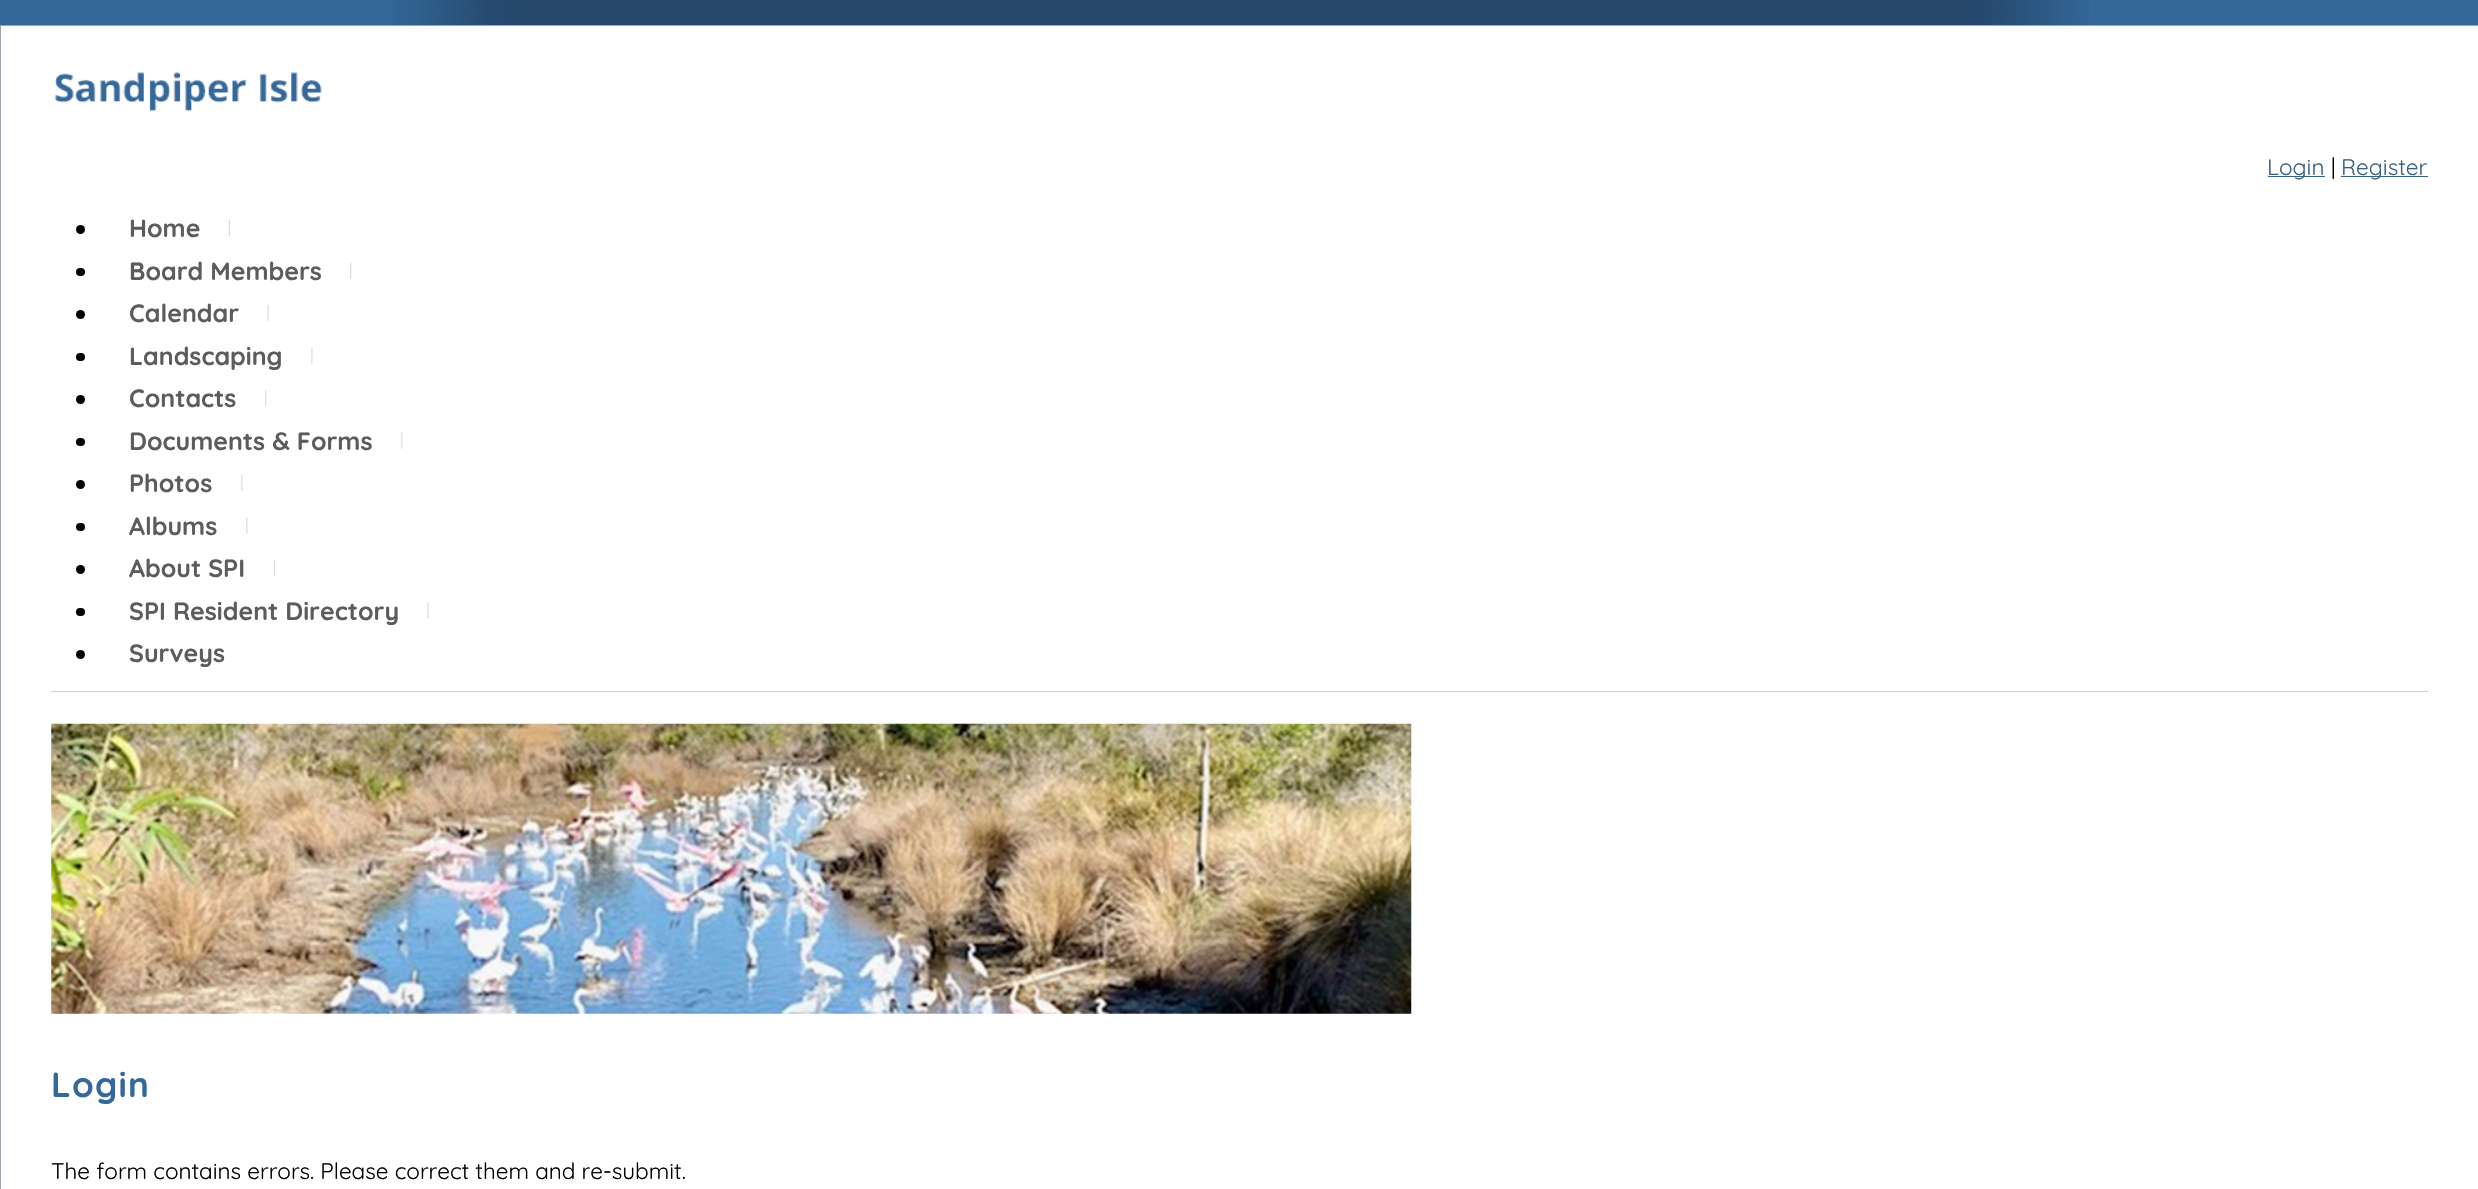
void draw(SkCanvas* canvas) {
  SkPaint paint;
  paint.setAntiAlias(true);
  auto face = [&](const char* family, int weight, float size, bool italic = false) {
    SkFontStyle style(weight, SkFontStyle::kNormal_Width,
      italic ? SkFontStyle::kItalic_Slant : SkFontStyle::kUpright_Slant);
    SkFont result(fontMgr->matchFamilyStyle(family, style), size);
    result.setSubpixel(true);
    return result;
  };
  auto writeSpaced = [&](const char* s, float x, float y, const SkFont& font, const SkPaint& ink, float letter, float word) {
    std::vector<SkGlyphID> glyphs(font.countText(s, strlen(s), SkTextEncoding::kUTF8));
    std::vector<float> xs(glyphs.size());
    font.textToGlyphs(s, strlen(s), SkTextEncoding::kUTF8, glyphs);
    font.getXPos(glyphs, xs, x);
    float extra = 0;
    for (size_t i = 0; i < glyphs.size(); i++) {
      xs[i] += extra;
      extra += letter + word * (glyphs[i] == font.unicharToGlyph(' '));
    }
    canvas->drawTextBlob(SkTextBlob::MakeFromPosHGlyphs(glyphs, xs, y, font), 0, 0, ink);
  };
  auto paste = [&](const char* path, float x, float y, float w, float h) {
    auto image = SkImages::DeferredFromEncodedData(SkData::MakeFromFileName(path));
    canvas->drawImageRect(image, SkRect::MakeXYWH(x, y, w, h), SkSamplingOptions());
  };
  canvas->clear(0xff34689a);
  paste("img/1.png", 393, 0, 1696, 25);
  paint.setColor(0xffffffff);
  canvas->drawRect(SkRect::MakeXYWH(0.5f, 25.5f, 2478, 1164), paint);
  paint.setStroke(true);
  paint.setStrokeWidth(1);
  paint.setColor(0xff9aa6ab);
  canvas->drawRect(SkRect::MakeXYWH(0.5f, 25.5f, 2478, 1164), paint);
  paste("img/2.png", 54, 72, 268, 40);
  paint.setStroke(false);
  paint.setColor(0xff39607d);
  canvas->drawRect(SkRect::MakeXYWH(2268, 176, 57, 1), paint);
  canvas->drawRect(SkRect::MakeXYWH(2341, 176, 87, 1), paint);
  paint.setColor(0xff000000);
  canvas->drawCircle(80.5f, 229.5f, 4.5f, paint);
  paste("img/3.png", 228, 220, 2, 17);
  canvas->drawRoundRect(SkRect::MakeXYWH(76, 268, 9, 8), 4, 4, paint);
  paste("img/4.png", 350, 262, 2, 17);
  canvas->drawCircle(80.5f, 314.5f, 4.5f, paint);
  paste("img/5.png", 267, 305, 2, 17);
  canvas->drawRoundRect(SkRect::MakeXYWH(76, 353, 9, 8), 4, 4, paint);
  paste("img/6.png", 311, 347, 2, 17);
  canvas->drawCircle(80.5f, 399.5f, 4.5f, paint);
  paste("img/7.png", 265, 390, 2, 17);
  canvas->drawRoundRect(SkRect::MakeXYWH(76, 438, 9, 8), 4, 4, paint);
  paste("img/6.png", 401, 432, 2, 17);
  canvas->drawCircle(80.5f, 484.5f, 4.5f, paint);
  paste("img/8.png", 241, 475, 2, 17);
  canvas->drawRoundRect(SkRect::MakeXYWH(76, 523, 9, 8), 4, 4, paint);
  paste("img/6.png", 246, 517, 2, 17);
  canvas->drawCircle(80.5f, 569.5f, 4.5f, paint);
  paste("img/3.png", 273, 560, 2, 17);
  canvas->drawRoundRect(SkRect::MakeXYWH(76, 608, 9, 8), 4, 4, paint);
  paste("img/9.png", 427, 602, 2, 17);
  canvas->drawCircle(80.5f, 654.5f, 4.5f, paint);
  paint.setColor(0xffcbcfd1);
  canvas->drawRect(SkRect::MakeXYWH(51, 691, 2377, 1), paint);
  paste("img/10.png", 51, 723, 1361, 291);
  auto f0 = face("Quicksand", 300, 22.5f);
  paint.setColor(0xff39607d);
  canvas->drawString("Login", 2267, 175, f0, paint);
  paint.setColor(0xff000000);
  canvas->drawString("|", 2331, 175, f0, paint);
  paint.setColor(0xff39607d);
  canvas->drawString("Register", 2341, 175, f0, paint);
  auto f1 = face("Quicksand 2", 300, 25);
  paint.setColor(0xff5b5c5e);
  {
    const struct { const char* s; float x, y; } items[] = {
      {"Home", 129, 237},
      {"Board Members", 129, 280},
      {"Calendar", 129, 322},
      {"Landscaping", 129, 365},
      {"Contacts", 129, 407},
      {"Documents & Forms", 129, 450},
      {"Photos", 129, 492},
      {"Albums", 129, 535},
      {"About SPI", 129, 577},
      {"SPI Resident Directory", 129, 620},
      {"Surveys", 129, 662},
    };
    for (auto [s, x, y] : items) {
      canvas->drawString(s, x, y, f1, paint);
    }
  }
  auto f2 = face("Quicksand 2", 300, 35);
  paint.setColor(0xff34689a);
  writeSpaced("Login", 51, 1097, f2, paint, 1.25f, 0);
  paint.setColor(0xff000000);
  canvas->drawString("The form contains errors. Please correct them and re-submit.", 51, 1179, f0, paint);
}
